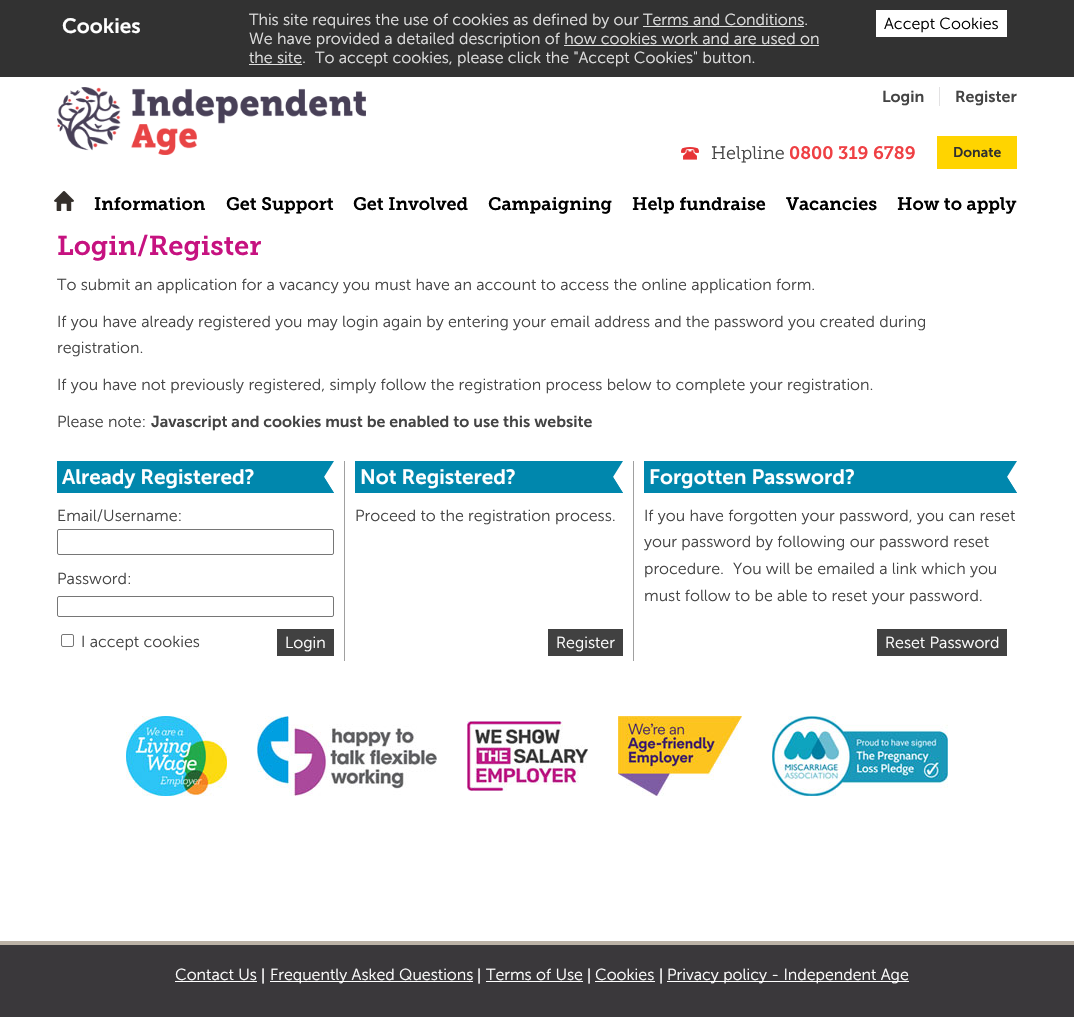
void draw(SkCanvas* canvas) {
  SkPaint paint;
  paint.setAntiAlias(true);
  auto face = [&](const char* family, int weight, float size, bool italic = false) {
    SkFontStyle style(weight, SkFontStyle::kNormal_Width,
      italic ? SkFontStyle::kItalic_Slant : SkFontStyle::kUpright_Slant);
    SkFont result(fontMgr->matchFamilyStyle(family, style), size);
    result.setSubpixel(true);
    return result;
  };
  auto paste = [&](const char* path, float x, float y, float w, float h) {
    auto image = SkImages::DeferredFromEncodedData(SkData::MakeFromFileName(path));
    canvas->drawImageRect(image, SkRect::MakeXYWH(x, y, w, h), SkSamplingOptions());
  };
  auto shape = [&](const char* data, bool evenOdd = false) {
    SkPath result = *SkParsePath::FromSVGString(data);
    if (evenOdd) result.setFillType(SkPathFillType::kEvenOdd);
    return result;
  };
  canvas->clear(0xffffffff);
  {
    const struct { float x, y, w, h; SkColor color; } items[] = {
      {0, 0, 1074, 77, 0xff323232},
      {643, 26, 161, 1, 0xffe0e0e0},
      {564, 45, 255, 1, 0xffe0e0e0},
      {249, 64, 53, 1, 0xffe0e0e0},
      {876, 10, 131, 27, 0xffffffff},
    };
    for (auto [x, y, w, h, color] : items) {
      paint.setColor(color);
      canvas->drawRect(SkRect::MakeXYWH(x, y, w, h), paint);
    }
  }
  paste("img/1.png", 57, 87, 309, 68);
  paint.setColor(0xffe3e2e3);
  canvas->drawRect(SkRect::MakeXYWH(939, 87, 1, 19), paint);
  paste("img/2.png", 681, 147, 18, 13);
  paint.setColor(0xffffd400);
  canvas->drawRect(SkRect::MakeXYWH(937, 136, 80, 33), paint);
  paste("img/3.png", 54, 191, 20, 20);
  paint.setColor(0xffa0a0a0);
  canvas->drawRect(SkRect::MakeXYWH(344, 461, 1, 200), paint);
  paint.setColor(0xff0087ad);
  canvas->drawRect(SkRect::MakeXYWH(57, 461, 277, 32), paint);
  paint.setColor(0xffffffff);
  canvas->drawPath(shape("M334 461V493L324 477Z"), paint);
  paint.setColor(0xff0087ad);
  canvas->drawPath(shape("M334 493H310L324 477Z"), paint);
  paint.setStroke(true);
  paint.setStrokeWidth(1);
  paint.setColor(0xff767676);
  canvas->drawRoundRect(SkRect::MakeXYWH(57.5f, 529.5f, 276, 25), 1.5f, 1.5f, paint);
  canvas->drawRoundRect(SkRect::MakeXYWH(57.5f, 596.5f, 276, 20), 1.5f, 1.5f, paint);
  canvas->drawRoundRect(SkRect::MakeXYWH(61.5f, 634.5f, 12, 12), 1.5f, 1.5f, paint);
  paint.setStroke(false);
  paint.setColor(0xff414141);
  canvas->drawRect(SkRect::MakeXYWH(277, 629, 57, 27), paint);
  paint.setColor(0xff0087ad);
  canvas->drawRect(SkRect::MakeXYWH(355, 461, 268, 32), paint);
  paint.setColor(0xffffffff);
  canvas->drawPath(shape("M623 461V493L613 477Z"), paint);
  paint.setColor(0xff0087ad);
  canvas->drawPath(shape("M623 493H599L613 477Z"), paint);
  {
    const struct { float x, y, w, h; SkColor color; } items[] = {
      {548, 629, 75, 27, 0xff414141},
      {633, 461, 1, 200, 0xffa0a0a0},
      {644, 461, 373, 32, 0xff0087ad},
    };
    for (auto [x, y, w, h, color] : items) {
      paint.setColor(color);
      canvas->drawRect(SkRect::MakeXYWH(x, y, w, h), paint);
    }
  }
  paint.setColor(0xffffffff);
  canvas->drawPath(shape("M1017 461V493L1007 477Z"), paint);
  paint.setColor(0xff0087ad);
  canvas->drawPath(shape("M1017 493H993L1007 477Z"), paint);
  paint.setColor(0xff414141);
  canvas->drawRect(SkRect::MakeXYWH(877, 629, 130, 27), paint);
  paste("img/4.png", 126, 716, 101, 80);
  paste("img/5.png", 257, 716, 180, 80);
  paste("img/6.png", 467, 721, 121, 70);
  paste("img/7.png", 618, 716, 124, 80);
  paste("img/8.png", 772, 716, 176, 80);
  {
    const struct { float x, y, w, h; SkColor color; } items[] = {
      {0, 945, 1074, 72, 0xff3a383b},
      {0, 941, 1074, 4, 0xffbbb2a6},
      {175, 981, 82, 1, 0xffffffff},
      {270, 981, 203, 1, 0xffffffff},
      {486, 981, 97, 1, 0xffffffff},
      {595, 981, 60, 1, 0xffffffff},
      {667, 981, 242, 1, 0xffffffff},
    };
    for (auto [x, y, w, h, color] : items) {
      paint.setColor(color);
      canvas->drawRect(SkRect::MakeXYWH(x, y, w, h), paint);
    }
  }
  auto f0 = face("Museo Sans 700", 600, 20.75f);
  canvas->drawString("Cookies", 62, 33, f0, paint);
  auto f1 = face("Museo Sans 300", 300, 16);
  paint.setColor(0xffe0e0e0);
  {
    const struct { const char* s; float x, y; } items[] = {
      {"This site requires the use of cookies as defined by our Terms and Conditions.", 249, 25},
      {"We have provided a detailed description of how cookies work and are used on", 249, 44},
      {"the site.", 249, 63},
      {"To accept cookies, please click the \"Accept Cookies\" button.", 315, 63},
    };
    for (auto [s, x, y] : items) {
      canvas->drawString(s, x, y, f1, paint);
    }
  }
  paint.setColor(0xff000000);
  canvas->drawString("Accept Cookies", 884, 29, f1, paint);
  auto f2 = face("Museo Sans 700", 600, 16);
  paint.setColor(0xff444444);
  canvas->drawString("Login", 882, 102, f2, paint);
  canvas->drawString("Register", 955, 102, f2, paint);
  auto f3 = face("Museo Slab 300", 300, 18);
  canvas->drawString("Helpline", 711, 159, f3, paint);
  auto f4 = face("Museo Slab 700", 600, 18);
  paint.setColor(0xffef4044);
  canvas->drawString("0800 319 6789", 789, 159, f4, paint);
  auto f5 = face("Museo Sans 700", 600, 14);
  paint.setColor(0xff303030);
  canvas->drawString("Donate", 953, 157, f5, paint);
  paint.setColor(0xff000000);
  {
    const struct { const char* s; float x, y; } items[] = {
      {"Information", 94, 210},
      {"Get Support", 226, 210},
      {"Get Involved", 353, 210},
      {"Campaigning", 488, 210},
      {"Help fundraise", 632, 210},
      {"Vacancies", 786, 210},
      {"How to apply", 897, 210},
    };
    for (auto [s, x, y] : items) {
      canvas->drawString(s, x, y, f4, paint);
    }
  }
  auto f6 = face("Museo Slab 700", 600, 27.25f);
  paint.setColor(0xffc61280);
  canvas->drawString("Login/Register", 57, 255, f6, paint);
  paint.setColor(0xff444444);
  {
    const struct { const char* s; float x, y; } items[] = {
      {"To submit an application for a vacancy you must have an account to access the online application form.", 57, 290},
      {"If you have already registered you may login again by entering your email address and the password you created during", 57, 327},
      {"registration.", 57, 353},
      {"If you have not previously registered, simply follow the registration process below to complete your registration.", 57, 390},
      {"Please note:", 57, 427},
    };
    for (auto [s, x, y] : items) {
      canvas->drawString(s, x, y, f1, paint);
    }
  }
  canvas->drawString("Javascript and cookies must be enabled to use this website", 151, 427, f2, paint);
  paint.setColor(0xffffffff);
  canvas->drawString("Already Registered?", 62, 484, f0, paint);
  paint.setColor(0xff444444);
  {
    const struct { const char* s; float x, y; } items[] = {
      {"Email/Username:", 57, 521},
      {"Password:", 57, 584},
      {"I accept cookies", 81, 647},
    };
    for (auto [s, x, y] : items) {
      canvas->drawString(s, x, y, f1, paint);
    }
  }
  paint.setColor(0xffffffff);
  canvas->drawString("Login", 285, 648, f1, paint);
  canvas->drawString("Not Registered?", 360, 484, f0, paint);
  paint.setColor(0xff444444);
  canvas->drawString("Proceed to the registration process.", 355, 521, f1, paint);
  paint.setColor(0xffffffff);
  canvas->drawString("Register", 556, 648, f1, paint);
  canvas->drawString("Forgotten Password?", 649, 484, f0, paint);
  paint.setColor(0xff444444);
  {
    const struct { const char* s; float x, y; } items[] = {
      {"If you have forgotten your password, you can reset", 644, 521},
      {"your password by following our password reset", 644, 547},
      {"procedure.", 644, 574},
      {"You will be emailed a link which you", 733, 574},
      {"must follow to be able to reset your password.", 644, 601},
    };
    for (auto [s, x, y] : items) {
      canvas->drawString(s, x, y, f1, paint);
    }
  }
  paint.setColor(0xffffffff);
  canvas->drawString("Reset Password", 885, 648, f1, paint);
  canvas->drawString("Contact Us", 175, 980, f1, paint);
  auto f7 = face("Liberation Sans", 400, 16);
  canvas->drawString("|", 261, 980, f7, paint);
  canvas->drawString("Frequently Asked Questions", 270, 980, f1, paint);
  canvas->drawString("|", 477, 980, f7, paint);
  canvas->drawString("Terms of Use", 486, 980, f1, paint);
  canvas->drawString("|", 587, 980, f7, paint);
  canvas->drawString("Cookies", 595, 980, f1, paint);
  canvas->drawString("|", 659, 980, f7, paint);
  canvas->drawString("Privacy policy - Independent Age", 667, 980, f1, paint);
}
